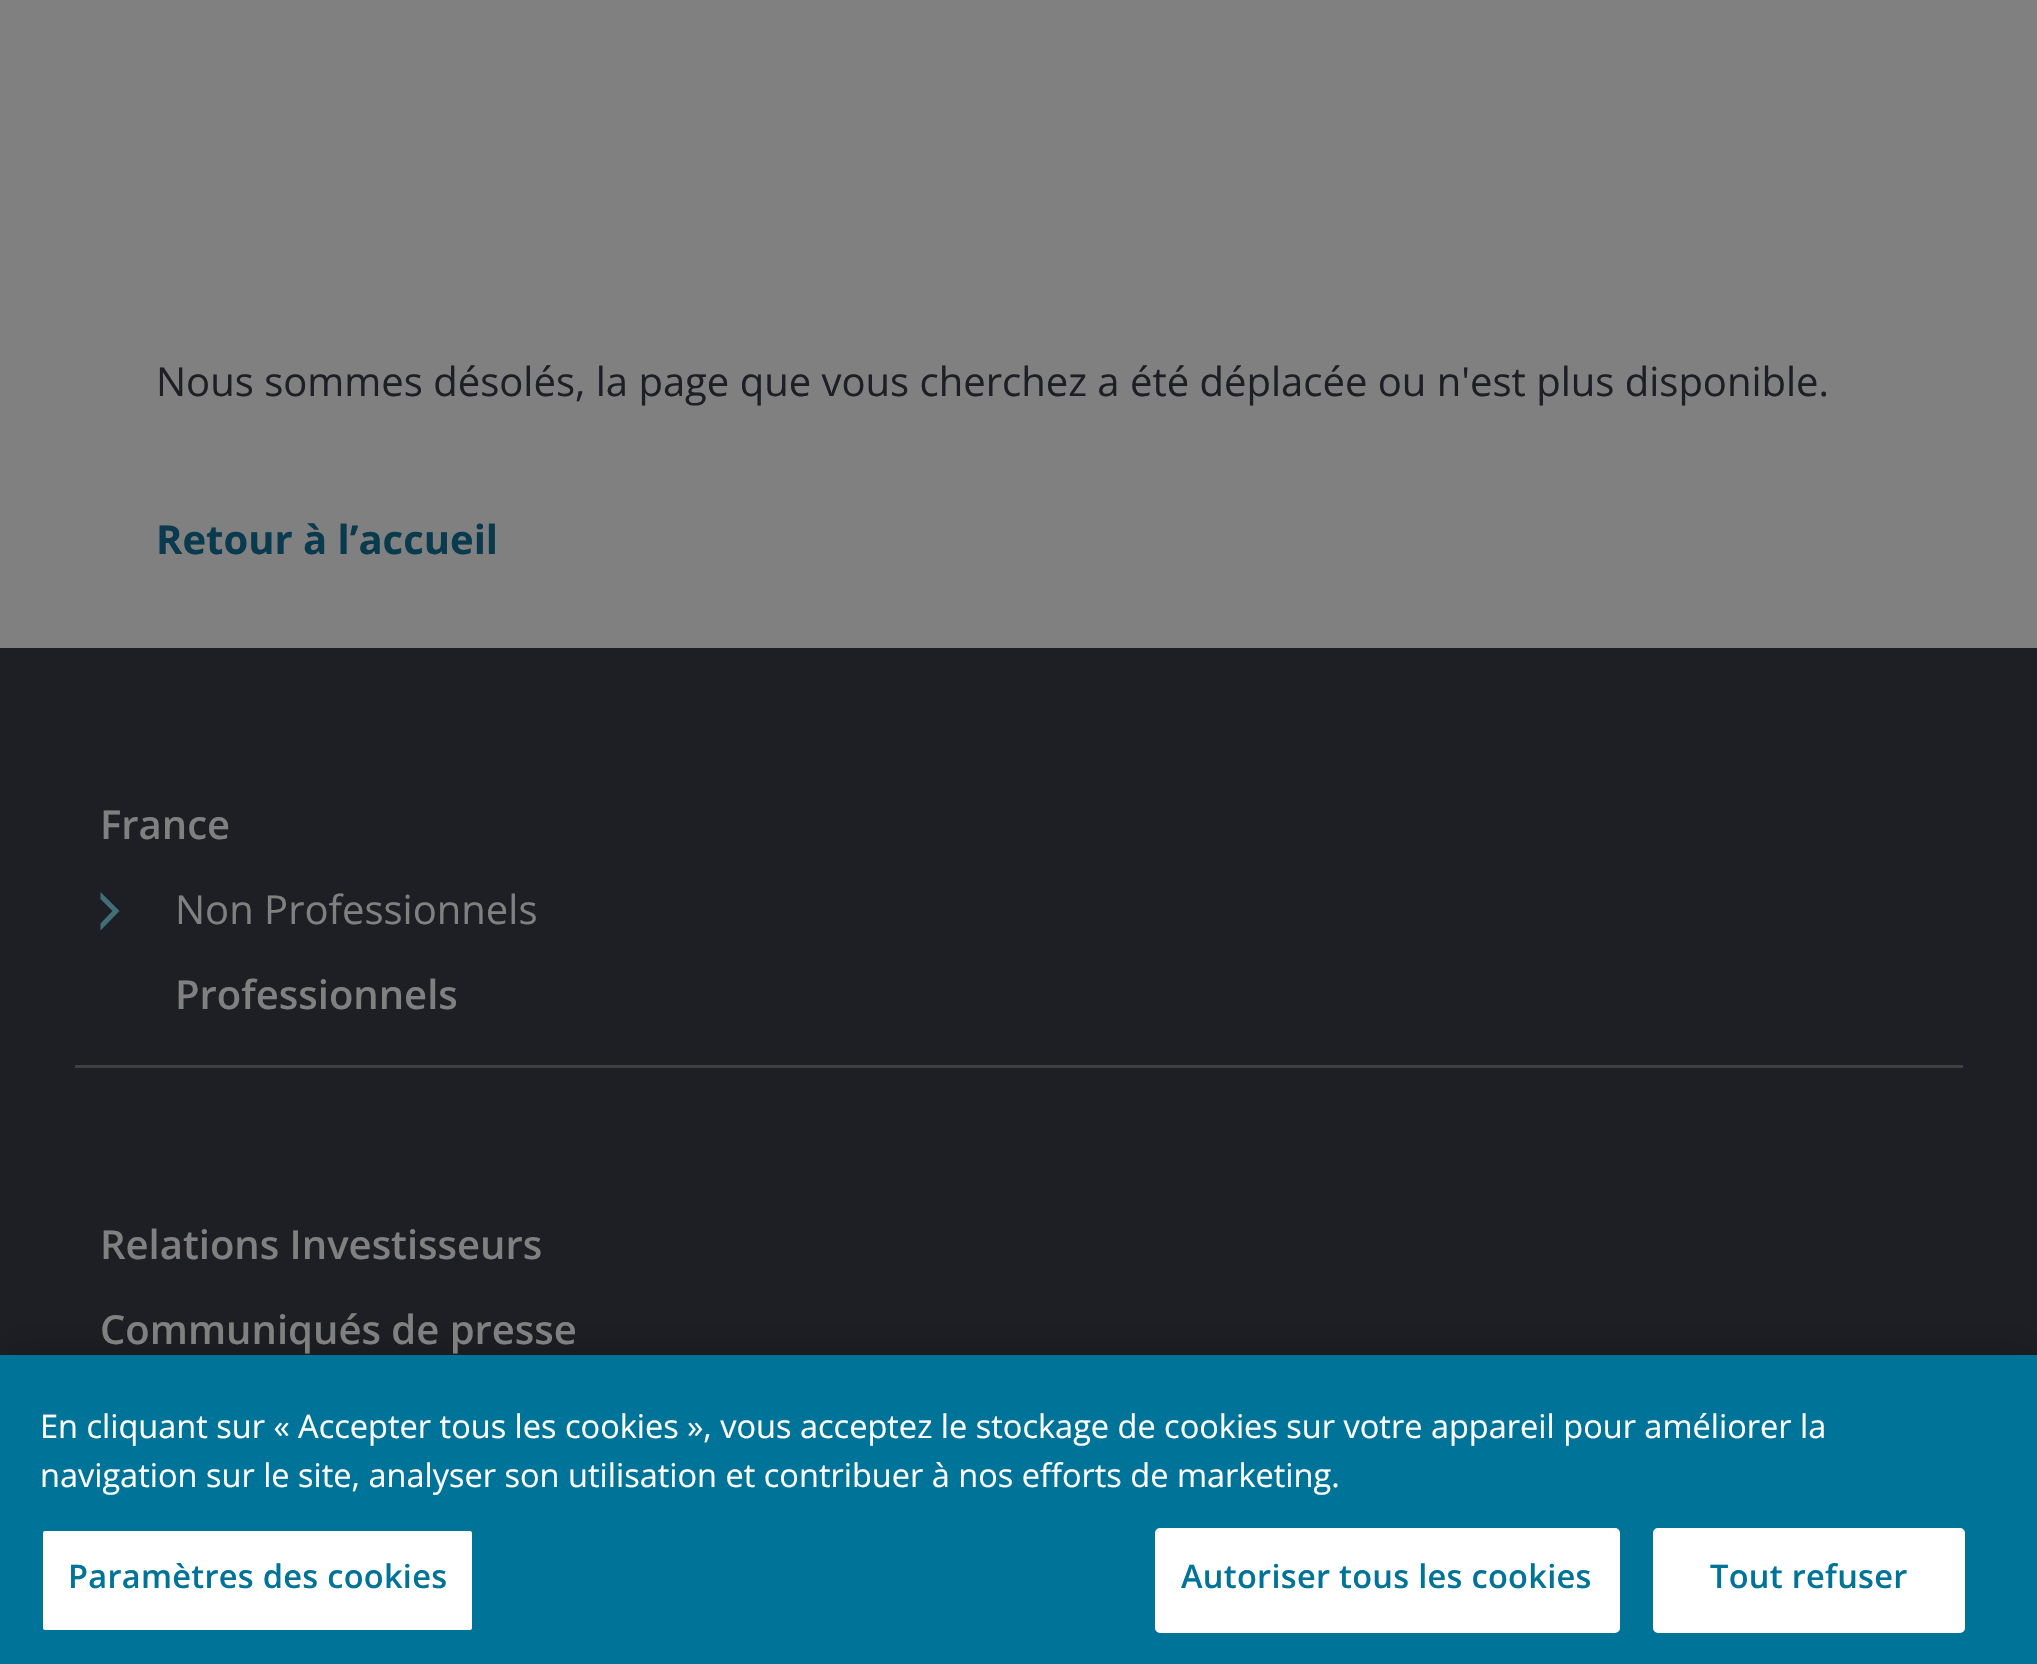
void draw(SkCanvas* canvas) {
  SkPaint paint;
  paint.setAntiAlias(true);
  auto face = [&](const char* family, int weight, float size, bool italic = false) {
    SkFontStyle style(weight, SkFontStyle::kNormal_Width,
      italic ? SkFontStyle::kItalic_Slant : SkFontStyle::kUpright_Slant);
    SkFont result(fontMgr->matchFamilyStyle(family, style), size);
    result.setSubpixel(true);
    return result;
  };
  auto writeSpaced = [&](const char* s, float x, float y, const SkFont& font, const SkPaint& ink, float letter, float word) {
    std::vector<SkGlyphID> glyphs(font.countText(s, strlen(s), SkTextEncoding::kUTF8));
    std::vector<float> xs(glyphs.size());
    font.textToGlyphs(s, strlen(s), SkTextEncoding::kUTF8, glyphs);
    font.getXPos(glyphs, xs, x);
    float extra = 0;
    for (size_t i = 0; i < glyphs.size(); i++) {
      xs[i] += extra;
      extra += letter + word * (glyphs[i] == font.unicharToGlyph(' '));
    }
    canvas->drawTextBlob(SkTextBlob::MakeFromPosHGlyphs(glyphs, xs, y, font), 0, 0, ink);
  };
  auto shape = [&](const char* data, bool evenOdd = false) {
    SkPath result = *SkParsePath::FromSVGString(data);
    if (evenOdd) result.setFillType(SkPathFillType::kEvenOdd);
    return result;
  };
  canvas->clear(0xff808080);
  paint.setColor(0xff1d1f24);
  canvas->drawRect(SkRect::MakeXYWH(0, 648, 2037, 707), paint);
  paint.setColor(0xff404040);
  canvas->drawRect(SkRect::MakeXYWH(75, 1065, 1888, 3), paint);
  paint.setColor(0xff406e79);
  canvas->drawPath(shape("M100.5 892L119.5 911H112.5L100.5 899ZM119.5 911L100.5 930.5V923.5L112.5 911Z"), paint);
  paint.setColor(0x33000000);
  paint.setMaskFilter(SkMaskFilter::MakeBlur(kNormal_SkBlurStyle, 22.5f));
  canvas->drawRect(SkRect::MakeXYWH(0, 1355, 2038, 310), paint);
  paint.setMaskFilter(nullptr);
  paint.setColor(0xff007398);
  canvas->drawRect(SkRect::MakeXYWH(0, 1355, 2037, 309), paint);
  paint.setColor(0xffffffff);
  canvas->drawRoundRect(SkRect::MakeXYWH(41.5f, 1529.5f, 432, 102), 3.5f, 3.5f, paint);
  paint.setStroke(true);
  paint.setStrokeWidth(3);
  paint.setColor(0xff007398);
  canvas->drawRoundRect(SkRect::MakeXYWH(41.5f, 1529.5f, 432, 102), 3.5f, 3.5f, paint);
  paint.setStroke(false);
  paint.setColor(0xffffffff);
  canvas->drawRoundRect(SkRect::MakeXYWH(1156.5f, 1529.5f, 462, 102), 3.5f, 3.5f, paint);
  paint.setStroke(true);
  canvas->drawRoundRect(SkRect::MakeXYWH(1156.5f, 1529.5f, 462, 102), 3.5f, 3.5f, paint);
  paint.setStroke(false);
  canvas->drawRoundRect(SkRect::MakeXYWH(1654.5f, 1529.5f, 309, 102), 3.5f, 3.5f, paint);
  paint.setStroke(true);
  canvas->drawRoundRect(SkRect::MakeXYWH(1654.5f, 1529.5f, 309, 102), 3.5f, 3.5f, paint);
  auto f0 = face("Open Sans", 400, 40);
  paint.setStroke(false);
  paint.setColor(0xff1d1f24);
  canvas->drawString("Nous sommes désolés, la page que vous cherchez a été déplacée ou n'est plus disponible.", 156, 396, f0, paint);
  auto f1 = face("Open Sans", 700, 40);
  paint.setColor(0xff093a4d);
  canvas->drawString("Retour à l’accueil", 156, 554, f1, paint);
  auto f2 = face("Open Sans", 600, 40);
  paint.setColor(0xff808080);
  canvas->drawString("France", 100, 839, f2, paint);
  canvas->drawString("Non Professionnels", 175, 924, f0, paint);
  {
    const struct { const char* s; float x, y; } items[] = {
      {"Professionnels", 175, 1009},
      {"Relations Investisseurs", 100, 1259},
      {"Communiqués de presse", 100, 1344},
    };
    for (auto [s, x, y] : items) {
      canvas->drawString(s, x, y, f2, paint);
    }
  }
  auto f3 = face("Open Sans", 400, 32.52f);
  paint.setColor(0xffffffff);
  canvas->drawString("En cliquant sur « Accepter tous les cookies », vous acceptez le stockage de cookies sur votre appareil pour améliorer la", 40, 1438, f3, paint);
  canvas->drawString("navigation sur le site, analyser son utilisation et contribuer à nos efforts de marketing.", 40, 1487, f3, paint);
  auto f4 = face("Open Sans", 600, 32.52f);
  paint.setColor(0xff007398);
  {
    const struct { const char* s; float x, y; } items[] = {
      {"Paramètres des cookies", 68, 1588},
      {"Autoriser tous les cookies", 1181, 1588},
      {"Tout refuser", 1710, 1588},
    };
    for (auto [s, x, y] : items) {
      writeSpaced(s, x, y, f4, paint, 0.3f, 0);
    }
  }
}
